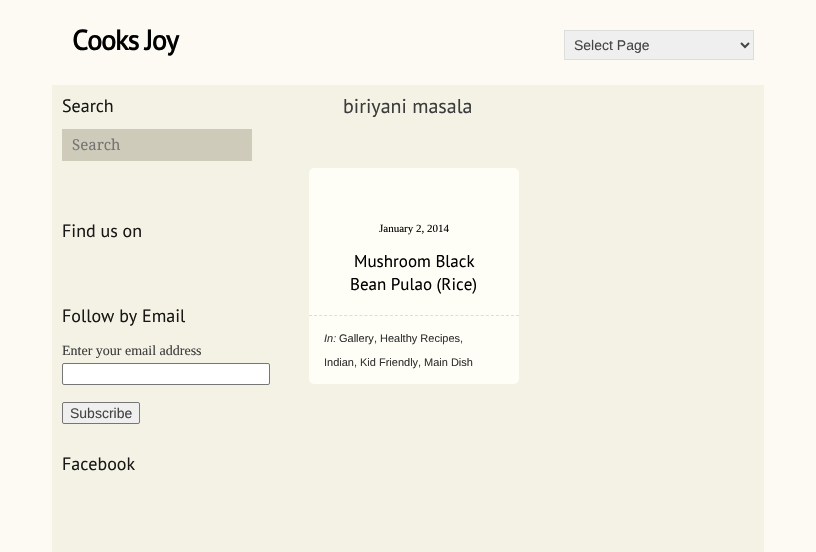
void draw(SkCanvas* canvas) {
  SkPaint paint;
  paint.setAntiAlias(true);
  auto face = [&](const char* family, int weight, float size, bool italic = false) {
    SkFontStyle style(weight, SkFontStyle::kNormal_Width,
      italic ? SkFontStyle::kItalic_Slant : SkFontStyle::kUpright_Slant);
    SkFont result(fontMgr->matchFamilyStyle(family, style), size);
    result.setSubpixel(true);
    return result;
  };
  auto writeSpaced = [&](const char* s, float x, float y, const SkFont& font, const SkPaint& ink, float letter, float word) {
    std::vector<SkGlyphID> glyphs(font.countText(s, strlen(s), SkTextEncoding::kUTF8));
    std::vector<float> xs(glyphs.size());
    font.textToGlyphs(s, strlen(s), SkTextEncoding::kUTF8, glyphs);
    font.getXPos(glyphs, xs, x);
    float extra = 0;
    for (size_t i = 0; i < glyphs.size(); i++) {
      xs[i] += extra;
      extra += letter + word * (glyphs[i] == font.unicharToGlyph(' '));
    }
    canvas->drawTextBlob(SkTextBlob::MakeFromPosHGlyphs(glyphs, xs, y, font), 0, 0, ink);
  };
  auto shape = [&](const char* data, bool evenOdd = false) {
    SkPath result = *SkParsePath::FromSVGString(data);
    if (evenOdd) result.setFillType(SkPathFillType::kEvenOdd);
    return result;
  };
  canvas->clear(0xfffcfaf3);
  paint.setColor(0xffefefef);
  canvas->drawRect(SkRect::MakeXYWH(564.5f, 30.5f, 189, 29), paint);
  paint.setStroke(true);
  paint.setStrokeWidth(1);
  paint.setColor(0xffdddddd);
  canvas->drawRect(SkRect::MakeXYWH(564.5f, 30.5f, 189, 29), paint);
  paint.setStrokeWidth(2);
  paint.setColor(0xff444444);
  canvas->drawPath(shape("M741 43L745 47L749 43"), paint);
  paint.setStroke(false);
  paint.setColor(0xfff4f2e5);
  canvas->drawRect(SkRect::MakeXYWH(52, 85, 712, 467), paint);
  paint.setColor(0xffcecbba);
  canvas->drawRect(SkRect::MakeXYWH(62, 129, 190, 32), paint);
  paint.setColor(0xffffffff);
  canvas->drawRoundRect(SkRect::MakeXYWH(62.5f, 363.5f, 207, 21), 1.5f, 1.5f, paint);
  paint.setStroke(true);
  paint.setStrokeWidth(1);
  paint.setColor(0xff767676);
  canvas->drawRoundRect(SkRect::MakeXYWH(62.5f, 363.5f, 207, 21), 1.5f, 1.5f, paint);
  paint.setStroke(false);
  paint.setColor(0xffefefef);
  canvas->drawRoundRect(SkRect::MakeXYWH(62.5f, 402.5f, 77, 21), 1.5f, 1.5f, paint);
  paint.setStroke(true);
  paint.setColor(0xff767676);
  canvas->drawRoundRect(SkRect::MakeXYWH(62.5f, 402.5f, 77, 21), 1.5f, 1.5f, paint);
  paint.setStroke(false);
  paint.setColor(0xfffffef6);
  canvas->drawRoundRect(SkRect::MakeXYWH(309, 168, 210, 216), 5, 5, paint);
  paint.setStroke(true);
  paint.setColor(0xffdddddd);
  paint.setPathEffect(SkDashPathEffect::Make({{3, 2.05f}}, 0));
  canvas->drawPath(shape("M309 315.5H519"), paint);
  paint.setPathEffect(nullptr);
  auto f0 = face("PT Sans", 700, 28);
  paint.setStroke(false);
  paint.setColor(0xff000000);
  writeSpaced("Cooks Joy", 72, 50, f0, paint, -1, 0);
  auto f1 = face("Liberation Sans", 400, 14);
  paint.setColor(0xff444444);
  canvas->drawString("Select Page", 574, 50, f1, paint);
  auto f2 = face("PT Sans", 400, 18);
  paint.setColor(0xff181817);
  canvas->drawString("Search", 62, 112, f2, paint);
  auto f3 = face("Droid Serif", 400, 15);
  paint.setColor(0xff757575);
  canvas->drawString("Search", 72, 150, f3, paint);
  paint.setColor(0xff181817);
  canvas->drawString("Find us on", 62, 237, f2, paint);
  canvas->drawString("Follow by Email", 62, 322, f2, paint);
  auto f4 = face("Liberation Serif", 400, 14);
  paint.setColor(0xff3c3c3c);
  canvas->drawString("Enter your email address", 62, 355, f4, paint);
  paint.setColor(0xff444444);
  canvas->drawString("Subscribe", 70, 418, f1, paint);
  paint.setColor(0xff181817);
  canvas->drawString("Facebook", 62, 470, f2, paint);
  auto f5 = face("PT Sans", 400, 20);
  paint.setColor(0xff3c3c3c);
  canvas->drawString("biriyani masala", 343, 113, f5, paint);
  auto f6 = face("Liberation Serif", 400, 11);
  paint.setColor(0xff000000);
  canvas->drawString("January 2, 2014", 379, 232, f6, paint);
  auto f7 = face("PT Sans", 400, 17);
  canvas->drawString("Mushroom Black", 354, 267, f7, paint);
  canvas->drawString("Bean Pulao (Rice)", 350, 290, f7, paint);
  auto f8 = face("Liberation Sans", 400, 11, true);
  paint.setColor(0xff3c3c3c);
  canvas->drawString("In:", 324, 342, f8, paint);
  auto f9 = face("Liberation Sans", 400, 11);
  paint.setColor(0xff333333);
  canvas->drawString("Gallery", 339, 342, f9, paint);
  paint.setColor(0xff3c3c3c);
  canvas->drawString(",", 374, 342, f9, paint);
  paint.setColor(0xff333333);
  canvas->drawString("Healthy Recipes", 380, 342, f9, paint);
  paint.setColor(0xff3c3c3c);
  canvas->drawString(",", 460, 342, f9, paint);
  paint.setColor(0xff333333);
  canvas->drawString("Indian", 324, 366, f9, paint);
  paint.setColor(0xff3c3c3c);
  canvas->drawString(",", 354, 366, f9, paint);
  paint.setColor(0xff333333);
  canvas->drawString("Kid Friendly", 360, 366, f9, paint);
  paint.setColor(0xff3c3c3c);
  canvas->drawString(",", 418, 366, f9, paint);
  paint.setColor(0xff333333);
  canvas->drawString("Main Dish", 424, 366, f9, paint);
}
